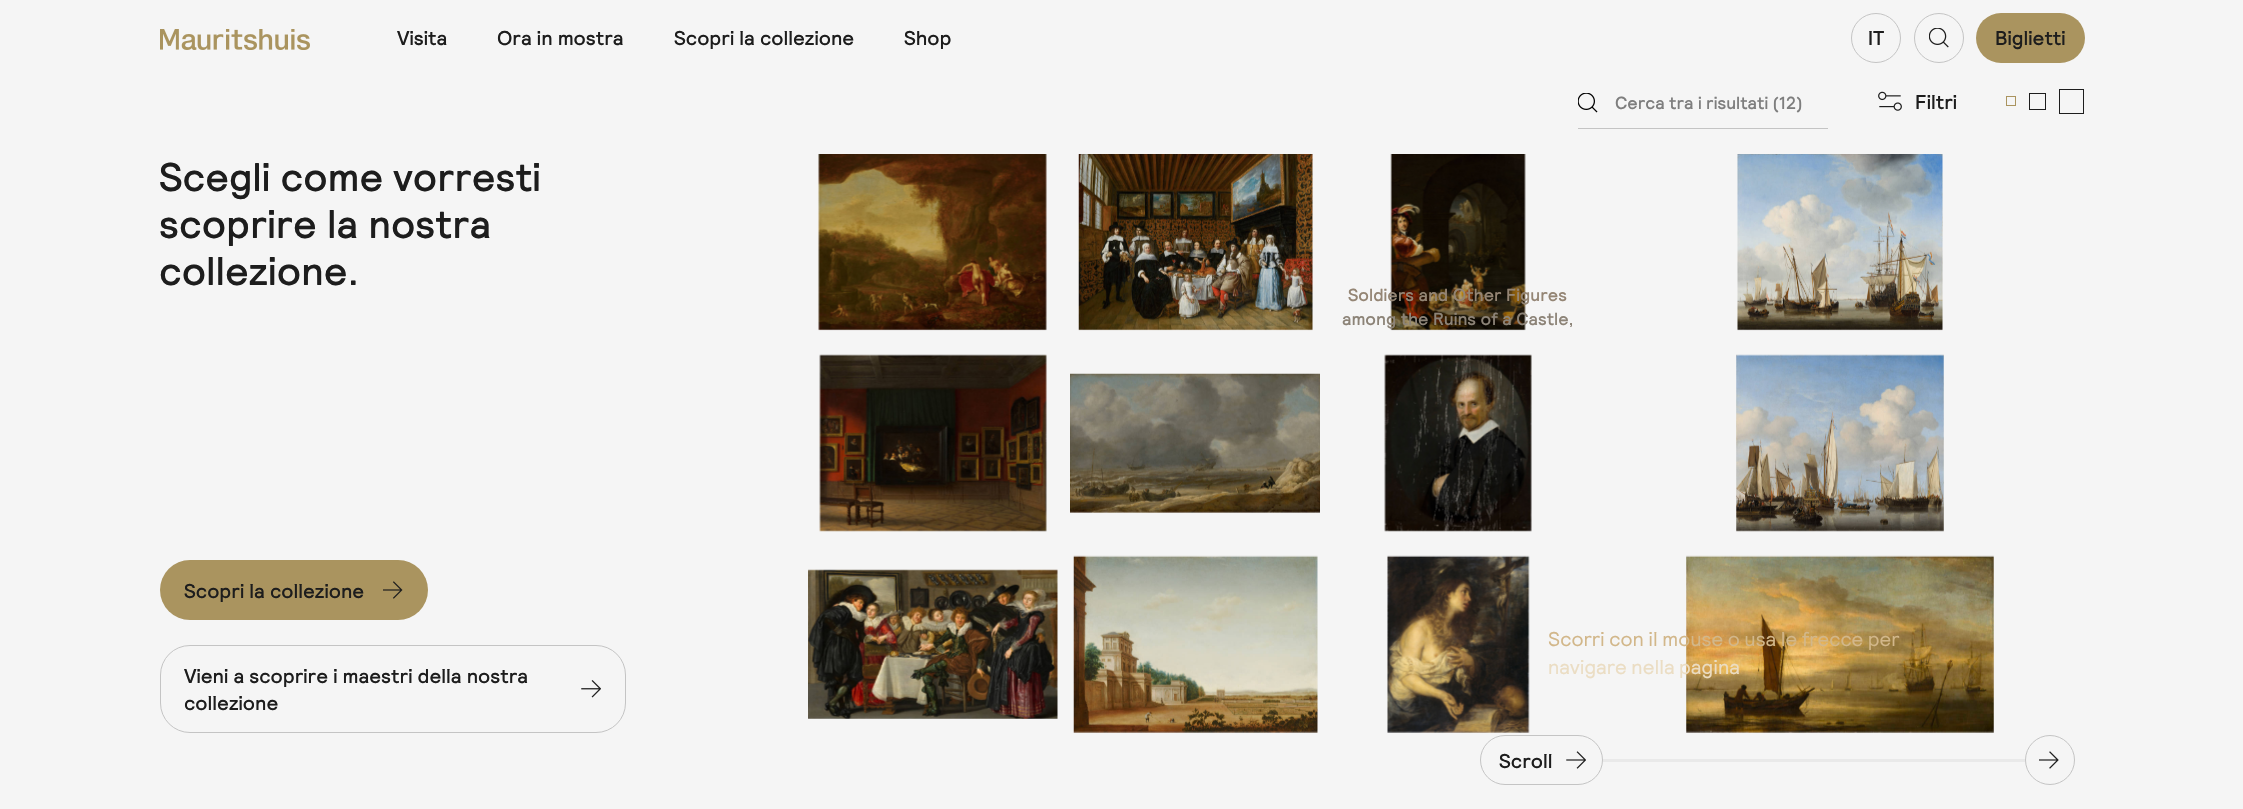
void draw(SkCanvas* canvas) {
  SkPaint paint;
  paint.setAntiAlias(true);
  auto face = [&](const char* family, int weight, float size, bool italic = false) {
    SkFontStyle style(weight, SkFontStyle::kNormal_Width,
      italic ? SkFontStyle::kItalic_Slant : SkFontStyle::kUpright_Slant);
    SkFont result(fontMgr->matchFamilyStyle(family, style), size);
    result.setSubpixel(true);
    return result;
  };
  auto paste = [&](const char* path, float x, float y, float w, float h) {
    auto image = SkImages::DeferredFromEncodedData(SkData::MakeFromFileName(path));
    canvas->drawImageRect(image, SkRect::MakeXYWH(x, y, w, h), SkSamplingOptions());
  };
  canvas->clear(0xfff5f5f5);
  paste("img/1.png", 160, 29, 150, 21);
  paint.setStroke(true);
  paint.setStrokeWidth(1);
  paint.setColor(0xffc4c4c4);
  canvas->drawCircle(1876, 38, 24.5f, paint);
  canvas->drawCircle(1939, 38, 24.5f, paint);
  paste("img/2.png", 1929, 28, 20, 20);
  paint.setStroke(false);
  paint.setColor(0xffaa945f);
  canvas->drawRoundRect(SkRect::MakeXYWH(1976, 13, 109, 50), 25, 25, paint);
  paste("img/3.png", 1578, 93, 20, 20);
  paint.setColor(0xffc4c4c4);
  canvas->drawRect(SkRect::MakeXYWH(1578, 128, 250, 1), paint);
  paste("img/4.png", 1878, 91, 24, 20);
  paint.setStroke(true);
  paint.setColor(0xffaa945f);
  canvas->drawRect(SkRect::MakeXYWH(2006.5f, 96.5f, 9, 9), paint);
  paint.setColor(0xff1d1d1d);
  canvas->drawRect(SkRect::MakeXYWH(2029.5f, 93.5f, 16, 16), paint);
  canvas->drawRect(SkRect::MakeXYWH(2059.5f, 89.5f, 24, 24), paint);
  paint.setStroke(false);
  paint.setColor(0xffaa945f);
  canvas->drawRoundRect(SkRect::MakeXYWH(160, 560, 268, 60), 30, 30, paint);
  paste("img/5.png", 383, 581, 20, 18);
  paint.setStroke(true);
  paint.setColor(0xffc4c4c4);
  canvas->drawRoundRect(SkRect::MakeXYWH(160.5f, 645.5f, 465, 87), 29.5f, 29.5f, paint);
  paste("img/6.png", 581, 680, 20, 18);
  paste("img/7.png", 818, 154, 229, 177);
  paste("img/8.png", 1078, 154, 235, 177);
  paste("img/9.png", 1390, 154, 136, 177);
  paste("img/10.png", 1737, 154, 206, 177);
  paste("img/11.png", 819, 354, 228, 178);
  paste("img/12.png", 1070, 373, 250, 140);
  paste("img/13.png", 1384, 354, 148, 178);
  paste("img/14.png", 1736, 354, 208, 178);
  paste("img/15.png", 808, 569, 250, 150);
  paste("img/16.png", 1073, 555, 245, 178);
  paste("img/17.png", 1387, 555, 143, 178);
  paste("img/18.png", 1686, 555, 308, 178);
  canvas->drawRoundRect(SkRect::MakeXYWH(1480.5f, 735.5f, 122, 49), 24.5f, 24.5f, paint);
  paste("img/19.png", 1566, 751, 20, 18);
  paint.setStroke(false);
  paint.setColor(0xffe9e9e9);
  canvas->drawRect(SkRect::MakeXYWH(1603, 759, 422, 3), paint);
  paint.setStroke(true);
  paint.setColor(0xffc4c4c4);
  canvas->drawCircle(2050, 760, 24.5f, paint);
  paste("img/20.png", 2039, 751, 20, 18);
  auto f0 = face("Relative", 500, 20);
  paint.setStroke(false);
  paint.setColor(0xff1d1d1d);
  {
    const struct { const char* s; float x, y; } items[] = {
      {"Visita", 397, 45},
      {"Ora in mostra", 497, 45},
      {"Scopri la collezione", 674, 45},
      {"Shop", 904, 45},
      {"IT", 1868, 45},
      {"Biglietti", 1995, 45},
    };
    for (auto [s, x, y] : items) {
      canvas->drawString(s, x, y, f0, paint);
    }
  }
  auto f1 = face("Relative", 500, 17.5f);
  paint.setColor(0xff7e7e7e);
  canvas->drawString("Cerca tra i risultati (12)", 1615, 109, f1, paint);
  paint.setColor(0xff1d1d1d);
  canvas->drawString("Filtri", 1915, 109, f0, paint);
  auto f2 = face("Relative", 500, 40);
  {
    const struct { const char* s; float x, y; } items[] = {
      {"Scegli come vorresti", 159, 191},
      {"scoprire la nostra", 159, 238},
      {"collezione.", 159, 285},
    };
    for (auto [s, x, y] : items) {
      canvas->drawString(s, x, y, f2, paint);
    }
  }
  {
    const struct { const char* s; float x, y; } items[] = {
      {"Scopri la collezione", 184, 598},
      {"Vieni a scoprire i maestri della nostra", 184, 683},
      {"collezione", 184, 710},
    };
    for (auto [s, x, y] : items) {
      canvas->drawString(s, x, y, f0, paint);
    }
  }
  paint.setColor(0xff948574);
  canvas->drawString("Soldiers and Other Figures", 1348, 301, f1, paint);
  paint.setColor(0xff8c8377);
  canvas->drawString("among the Ruins of a Castle,", 1342, 325, f1, paint);
  auto f3 = face("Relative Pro", 400, 20);
  paint.setColor(0xffd2b78a);
  canvas->drawString("Scorri con il mouse o usa le frecce per", 1548, 646, f3, paint);
  paint.setColor(0xffebddc3);
  canvas->drawString("navigare nella pagina", 1548, 674, f3, paint);
  paint.setColor(0xff1d1d1d);
  canvas->drawString("Scroll", 1499, 768, f0, paint);
}
